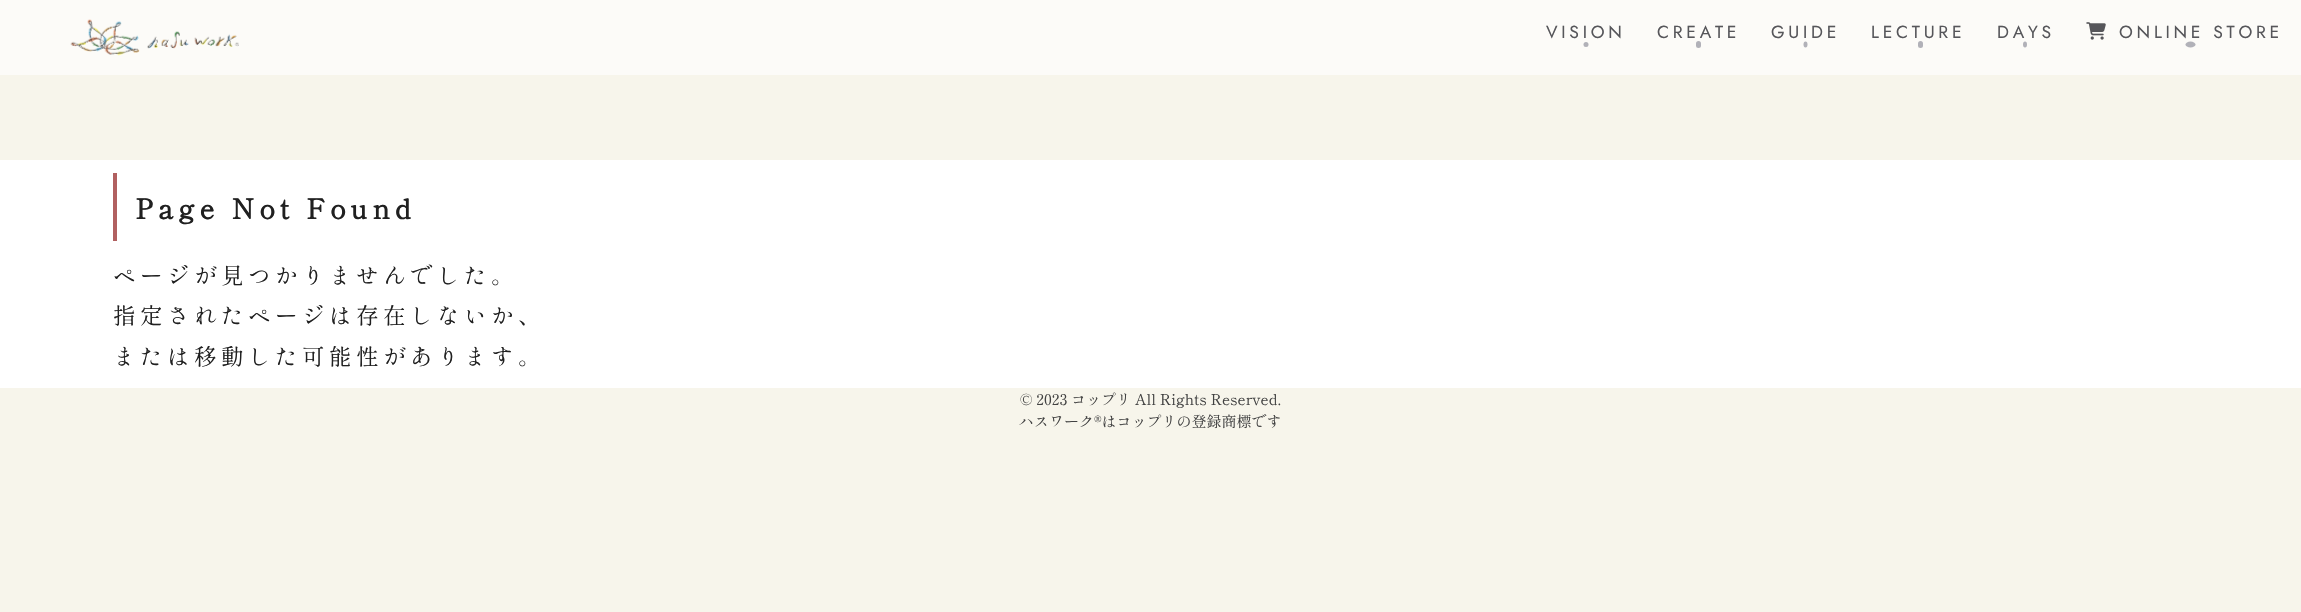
void draw(SkCanvas* canvas) {
  SkPaint paint;
  paint.setAntiAlias(true);
  auto face = [&](const char* family, int weight, float size, bool italic = false) {
    SkFontStyle style(weight, SkFontStyle::kNormal_Width,
      italic ? SkFontStyle::kItalic_Slant : SkFontStyle::kUpright_Slant);
    SkFont result(fontMgr->matchFamilyStyle(family, style), size);
    result.setSubpixel(true);
    return result;
  };
  auto writeSpaced = [&](const char* s, float x, float y, const SkFont& font, const SkPaint& ink, float letter, float word) {
    std::vector<SkGlyphID> glyphs(font.countText(s, strlen(s), SkTextEncoding::kUTF8));
    std::vector<float> xs(glyphs.size());
    font.textToGlyphs(s, strlen(s), SkTextEncoding::kUTF8, glyphs);
    font.getXPos(glyphs, xs, x);
    float extra = 0;
    for (size_t i = 0; i < glyphs.size(); i++) {
      xs[i] += extra;
      extra += letter + word * (glyphs[i] == font.unicharToGlyph(' '));
    }
    canvas->drawTextBlob(SkTextBlob::MakeFromPosHGlyphs(glyphs, xs, y, font), 0, 0, ink);
  };
  auto paste = [&](const char* path, float x, float y, float w, float h) {
    auto image = SkImages::DeferredFromEncodedData(SkData::MakeFromFileName(path));
    canvas->drawImageRect(image, SkRect::MakeXYWH(x, y, w, h), SkSamplingOptions());
  };
  canvas->clear(0xfff7f5eb);
  paint.setColor(0xfffcfbf8);
  canvas->drawRect(SkRect::MakeXYWH(0, 0, 2301, 75), paint);
  paste("img/1.png", 70, 19, 169, 37);
  paint.setColor(0xffb1b1b8);
  canvas->drawCircle(1586, 44.5f, 2.5f, paint);
  canvas->drawRoundRect(SkRect::MakeXYWH(1696, 41, 5, 7), 2.5f, 2.5f, paint);
  canvas->drawOval(SkRect::MakeXYWH(1803.5f, 41.5f, 4, 6), paint);
  canvas->drawRoundRect(SkRect::MakeXYWH(1918, 41, 5, 7), 2.5f, 2.5f, paint);
  canvas->drawOval(SkRect::MakeXYWH(2023, 41.5f, 4, 6), paint);
  paste("img/2.png", 2086, 22, 20, 18);
  canvas->drawOval(SkRect::MakeXYWH(2185.5f, 41.5f, 10, 6), paint);
  paint.setColor(0xffffffff);
  canvas->drawRect(SkRect::MakeXYWH(0, 160, 2301, 228), paint);
  paint.setColor(0xffb16060);
  canvas->drawRect(SkRect::MakeXYWH(113, 173, 4, 68), paint);
  auto f0 = face("Jost", 400, 17.5f);
  paint.setColor(0xff56565a);
  {
    const struct { const char* s; float x, y; } items[] = {
      {"VISION", 1546, 38},
      {"CREATE", 1657, 38},
      {"GUIDE", 1771, 38},
      {"LECTURE", 1871, 38},
      {"DAYS", 1997, 38},
      {"ONLINE STORE", 2119, 38},
    };
    for (auto [s, x, y] : items) {
      writeSpaced(s, x, y, f0, paint, 3.75f, 0);
    }
  }
  auto f1 = face("Shippori Mincho B1", 700, 27.5f);
  paint.setColor(0xff202020);
  writeSpaced("Page Not Found", 135, 219, f1, paint, 5, 0);
  auto f2 = face("Shippori Mincho B1", 400, 22.5f);
  {
    const struct { const char* s; float x, y; } items[] = {
      {"ページが見つかりませんでした。", 113, 284},
      {"指定されたページは存在しないか、", 113, 324},
      {"または移動した可能性があります。", 113, 365},
    };
    for (auto [s, x, y] : items) {
      writeSpaced(s, x, y, f2, paint, 4.5f, 0);
    }
  }
  auto f3 = face("Shippori Mincho B1", 400, 15);
  paint.setColor(0xff424242);
  canvas->drawString("© 2023 コップリ All Rights Reserved.", 1020, 405, f3, paint);
  canvas->drawString("ハスワーク®はコップリの登録商標です", 1019, 427, f3, paint);
}
